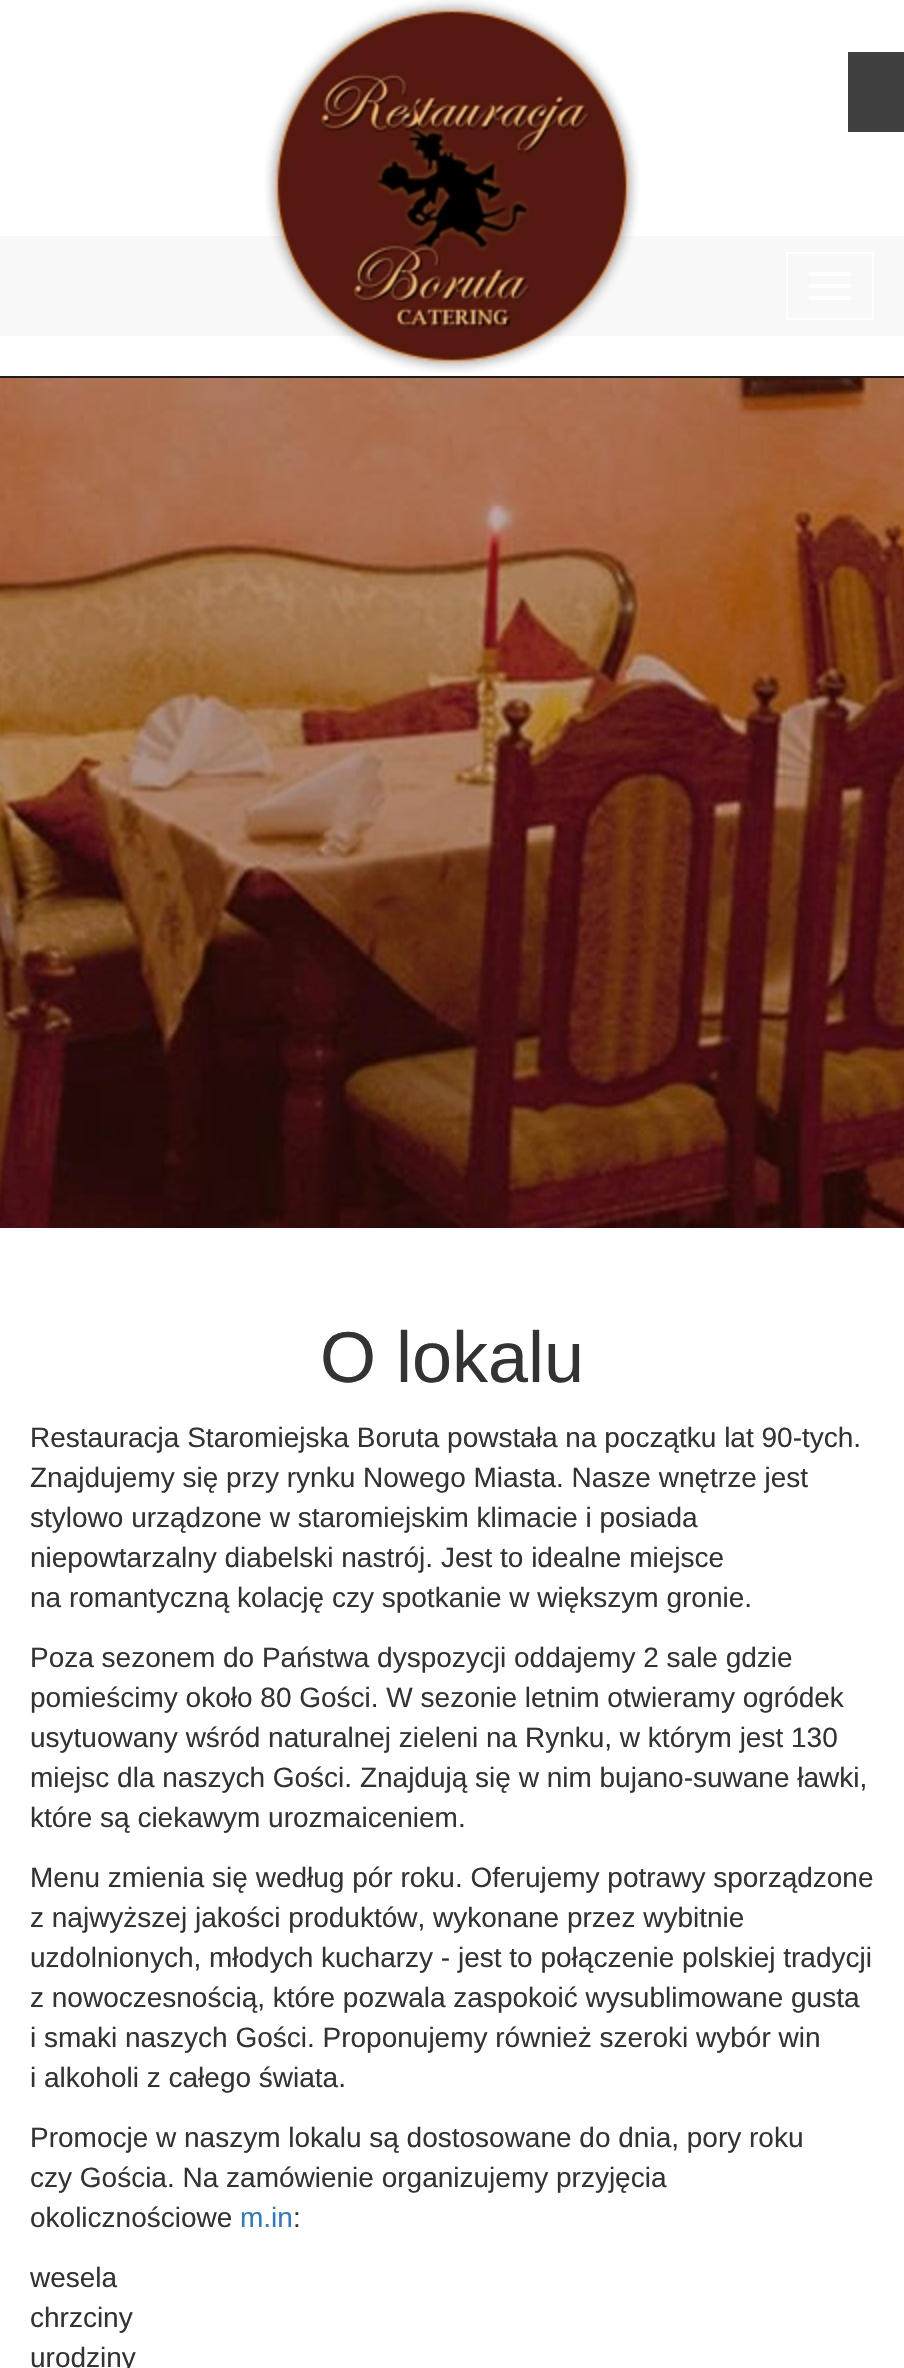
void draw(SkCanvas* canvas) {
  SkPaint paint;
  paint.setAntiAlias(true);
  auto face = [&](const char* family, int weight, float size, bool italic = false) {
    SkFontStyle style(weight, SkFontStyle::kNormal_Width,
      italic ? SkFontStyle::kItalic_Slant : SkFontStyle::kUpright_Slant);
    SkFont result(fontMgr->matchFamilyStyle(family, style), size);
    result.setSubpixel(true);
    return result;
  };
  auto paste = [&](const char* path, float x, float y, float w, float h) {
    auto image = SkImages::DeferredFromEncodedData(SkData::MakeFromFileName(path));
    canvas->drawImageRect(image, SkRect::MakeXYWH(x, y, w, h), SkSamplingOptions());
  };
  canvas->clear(0xffffffff);
  paint.setColor(0xff404040);
  canvas->drawRect(SkRect::MakeXYWH(848, 52, 56, 80), paint);
  paint.setColor(0xfff8f8f8);
  canvas->drawRect(SkRect::MakeXYWH(0, 236, 904, 100), paint);
  paste("img/1.png", 265, 0, 374, 373);
  paint.setColor(0xff1f1b16);
  canvas->drawRect(SkRect::MakeXYWH(0, 376, 904, 2), paint);
  paint.setStroke(true);
  paint.setStrokeWidth(2);
  paint.setColor(0xffffffff);
  canvas->drawRect(SkRect::MakeXYWH(787, 253, 86, 66), paint);
  paint.setStroke(false);
  canvas->drawRoundRect(SkRect::MakeXYWH(808, 272, 44, 4), 2, 2, paint);
  canvas->drawRoundRect(SkRect::MakeXYWH(808, 284, 44, 4), 2, 2, paint);
  canvas->drawRoundRect(SkRect::MakeXYWH(808, 296, 44, 4), 2, 2, paint);
  paste("img/2.png", 0, 378, 904, 850);
  auto f0 = face("Liberation Sans", 400, 72);
  paint.setColor(0xff333333);
  canvas->drawString("O lokalu", 320, 1382, f0, paint);
  auto f1 = face("Liberation Sans", 400, 28);
  {
    const struct { const char* s; float x, y; } items[] = {
      {"Restauracja Staromiejska Boruta powstała na początku lat 90-tych.", 30, 1447},
      {"Znajdujemy się przy rynku Nowego Miasta. Nasze wnętrze jest", 30, 1487},
      {"stylowo urządzone w staromiejskim klimacie i posiada", 30, 1527},
      {"niepowtarzalny diabelski nastrój. Jest to idealne miejsce", 30, 1567},
      {"na romantyczną kolację czy spotkanie w większym gronie.", 30, 1607},
      {"Poza sezonem do Państwa dyspozycji oddajemy 2 sale gdzie", 30, 1667},
      {"pomieścimy około 80 Gości. W sezonie letnim otwieramy ogródek", 30, 1707},
      {"usytuowany wśród naturalnej zieleni na Rynku, w którym jest 130", 30, 1747},
      {"miejsc dla naszych Gości. Znajdują się w nim bujano-suwane ławki,", 30, 1787},
      {"które są ciekawym urozmaiceniem.", 30, 1827},
      {"Menu zmienia się według pór roku. Oferujemy potrawy sporządzone", 30, 1887},
      {"z najwyższej jakości produktów, wykonane przez wybitnie", 30, 1927},
      {"uzdolnionych, młodych kucharzy - jest to połączenie polskiej tradycji", 30, 1967},
      {"z nowoczesnością, które pozwala zaspokoić wysublimowane gusta", 30, 2007},
      {"i smaki naszych Gości. Proponujemy również szeroki wybór win", 30, 2047},
      {"i alkoholi z całego świata.", 30, 2087},
      {"Promocje w naszym lokalu są dostosowane do dnia, pory roku", 30, 2147},
      {"czy Gościa. Na zamówienie organizujemy przyjęcia", 30, 2187},
      {"okolicznościowe", 30, 2227},
    };
    for (auto [s, x, y] : items) {
      canvas->drawString(s, x, y, f1, paint);
    }
  }
  paint.setColor(0xff337ab7);
  canvas->drawString("m.in", 240, 2227, f1, paint);
  paint.setColor(0xff333333);
  {
    const struct { const char* s; float x, y; } items[] = {
      {":", 293, 2227},
      {"wesela", 30, 2287},
      {"chrzciny", 30, 2327},
      {"urodziny", 30, 2367},
    };
    for (auto [s, x, y] : items) {
      canvas->drawString(s, x, y, f1, paint);
    }
  }
}
